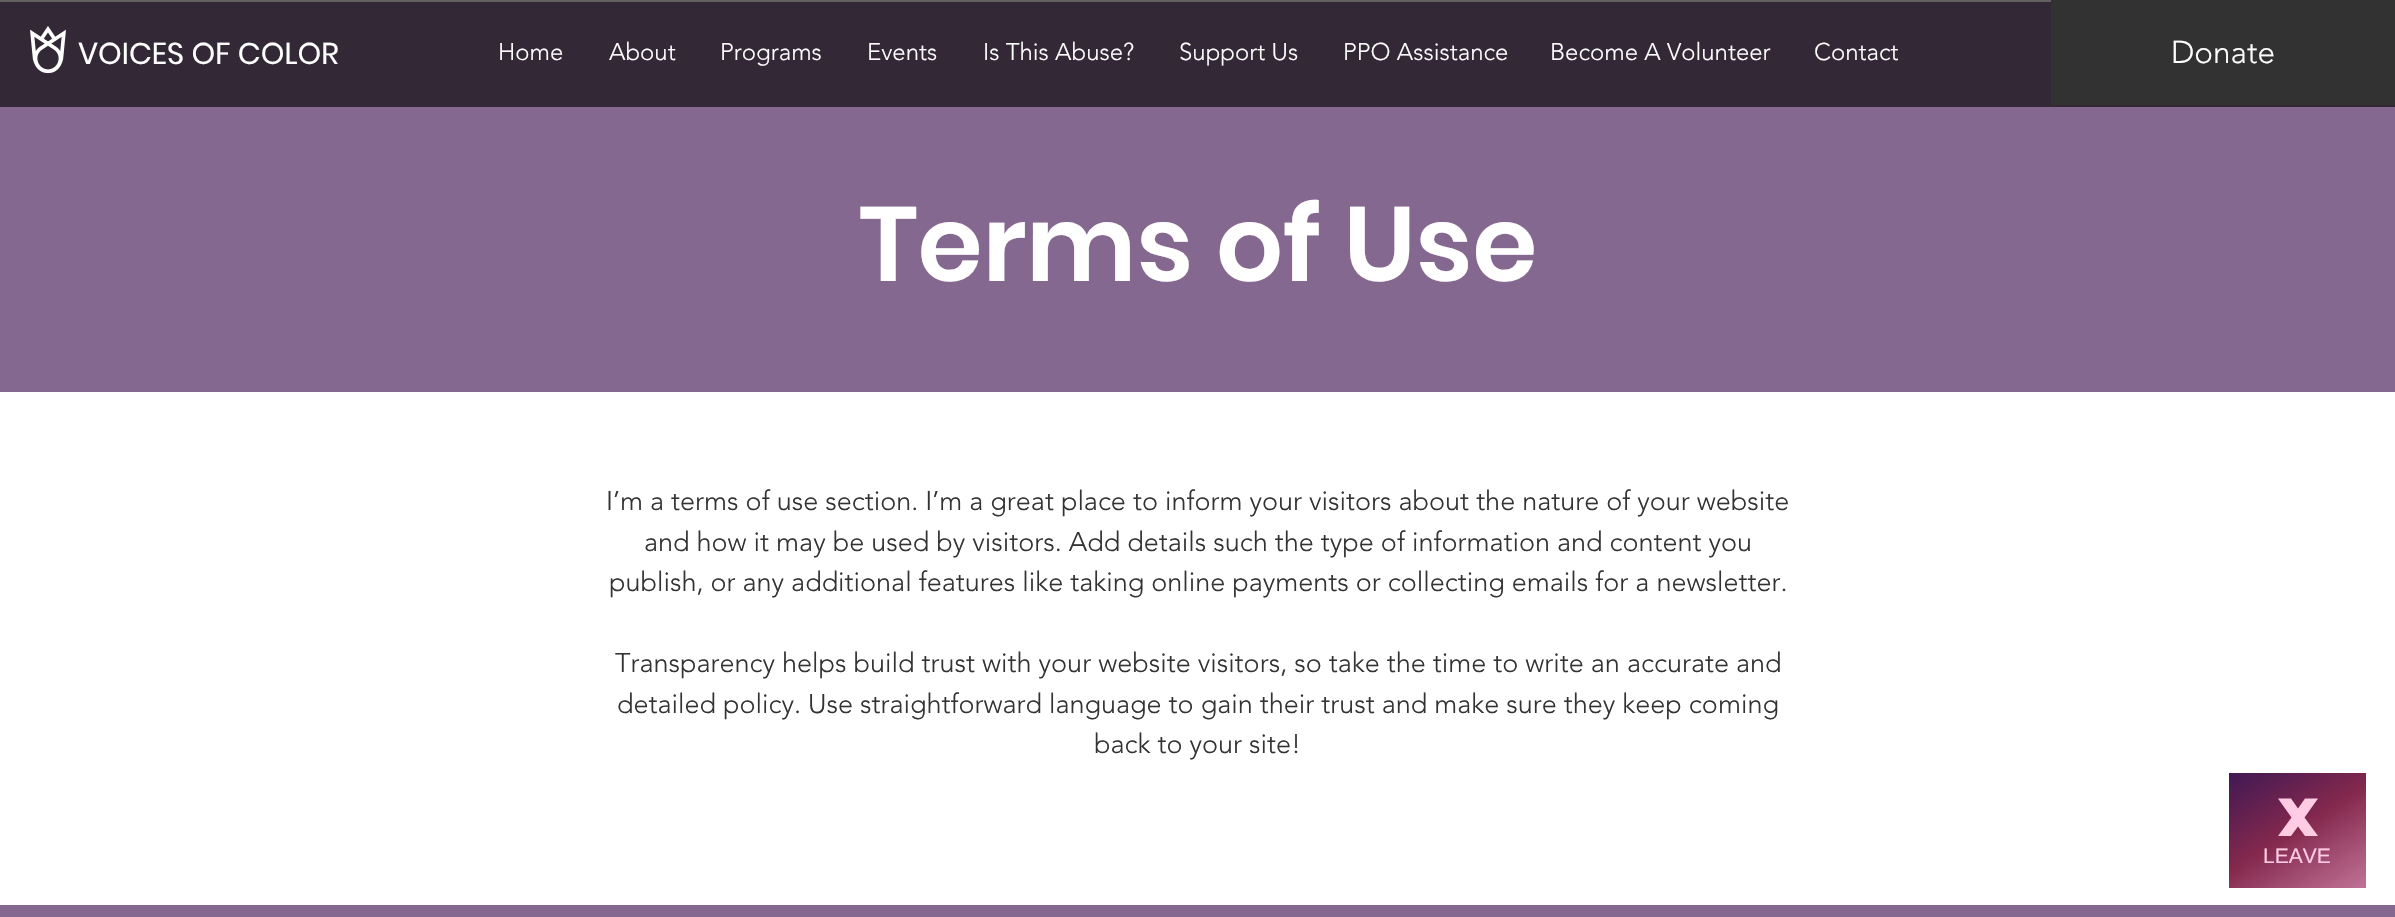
void draw(SkCanvas* canvas) {
  SkPaint paint;
  paint.setAntiAlias(true);
  auto face = [&](const char* family, int weight, float size, bool italic = false) {
    SkFontStyle style(weight, SkFontStyle::kNormal_Width,
      italic ? SkFontStyle::kItalic_Slant : SkFontStyle::kUpright_Slant);
    SkFont result(fontMgr->matchFamilyStyle(family, style), size);
    result.setSubpixel(true);
    return result;
  };
  auto paste = [&](const char* path, float x, float y, float w, float h) {
    auto image = SkImages::DeferredFromEncodedData(SkData::MakeFromFileName(path));
    canvas->drawImageRect(image, SkRect::MakeXYWH(x, y, w, h), SkSamplingOptions());
  };
  auto shape = [&](const char* data, bool evenOdd = false) {
    SkPath result = *SkParsePath::FromSVGString(data);
    if (evenOdd) result.setFillType(SkPathFillType::kEvenOdd);
    return result;
  };
  canvas->clear(0xffffffff);
  paint.setColor(0xff616161);
  canvas->drawRect(SkRect::MakeXYWH(0, 0, 2051, 2), paint);
  paint.setColor(0xff332836);
  canvas->drawRect(SkRect::MakeXYWH(0, 2, 2395, 105), paint);
  paste("img/1.png", 30, 26, 36, 48);
  {
    const struct { float x, y, w, h; SkColor color; } items[] = {
      {2051, 0, 344, 105, 0xff323232},
      {0, 107, 2395, 285, 0xff85688f},
      {0, 905, 2395, 12, 0xff85688f},
    };
    for (auto [x, y, w, h, color] : items) {
      paint.setColor(color);
      canvas->drawRect(SkRect::MakeXYWH(x, y, w, h), paint);
    }
  }
  {
    const SkColor colors[] = {0xff401954, 0xff84284d, 0xffbf7396};
    const float stops[] = {0, 0.49f, 1};
    const SkPoint ends[] = {{2252, 758}, {2342, 902}};
    paint.setShader(SkGradientShader::MakeLinear(ends, colors, stops, 3, SkTileMode::kClamp));
    paint.setAlpha(255);
  }
  canvas->drawRect(SkRect::MakeXYWH(2229, 773, 137, 115), paint);
  paint.setShader(nullptr);
  paint.setColor(0xffffcce3);
  canvas->drawPath(shape("M2304.5 817.5L2318 798.5H2305L2298 808.5L2291 798.5H2278L2291.5 817.5L2278 836H2291L2298 826.5L2305 836H2318Z"), paint);
  auto f0 = face("Poppins", 400, 30);
  paint.setColor(0xffffffff);
  canvas->drawString("VOICES OF COLOR", 78, 64, f0, paint);
  auto f1 = face("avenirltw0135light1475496", 300, 24);
  {
    const struct { const char* s; float x, y; } items[] = {
      {"Home", 498, 60},
      {"About", 609, 60},
      {"Programs", 720, 60},
      {"Events", 867, 60},
      {"Is This Abuse?", 983, 60},
      {"Support Us", 1179, 60},
      {"PPO Assistance", 1343, 60},
      {"Become A Volunteer", 1550, 60},
      {"Contact", 1814, 60},
    };
    for (auto [s, x, y] : items) {
      canvas->drawString(s, x, y, f1, paint);
    }
  }
  auto f2 = face("avenirltw0135light1475496", 300, 31.5f);
  canvas->drawString("Donate", 2171, 63, f2, paint);
  auto f3 = face("Poppins", 600, 105);
  canvas->drawString("Terms of Use", 859, 281, f3, paint);
  auto f4 = face("avenirltw0135light1475496", 300, 27);
  paint.setColor(0xff333333);
  {
    const struct { const char* s; float x, y; } items[] = {
      {"I’m a terms of use section. I’m a great place to inform your visitors about the nature of your website", 606, 510},
      {"and how it may be used by visitors. Add details such the type of information and content you", 644, 551},
      {"publish, or any additional features like taking online payments or collecting emails for a newsletter.", 609, 591},
      {"Transparency helps build trust with your website visitors, so take the time to write an accurate and", 615, 672},
      {"detailed policy. Use straightforward language to gain their trust and make sure they keep coming", 617, 713},
      {"back to your site!", 1094, 753},
    };
    for (auto [s, x, y] : items) {
      canvas->drawString(s, x, y, f4, paint);
    }
  }
  auto f5 = face("Liberation Sans", 400, 21);
  paint.setColor(0xffffcce3);
  canvas->drawString("LEAVE", 2263, 863, f5, paint);
}
